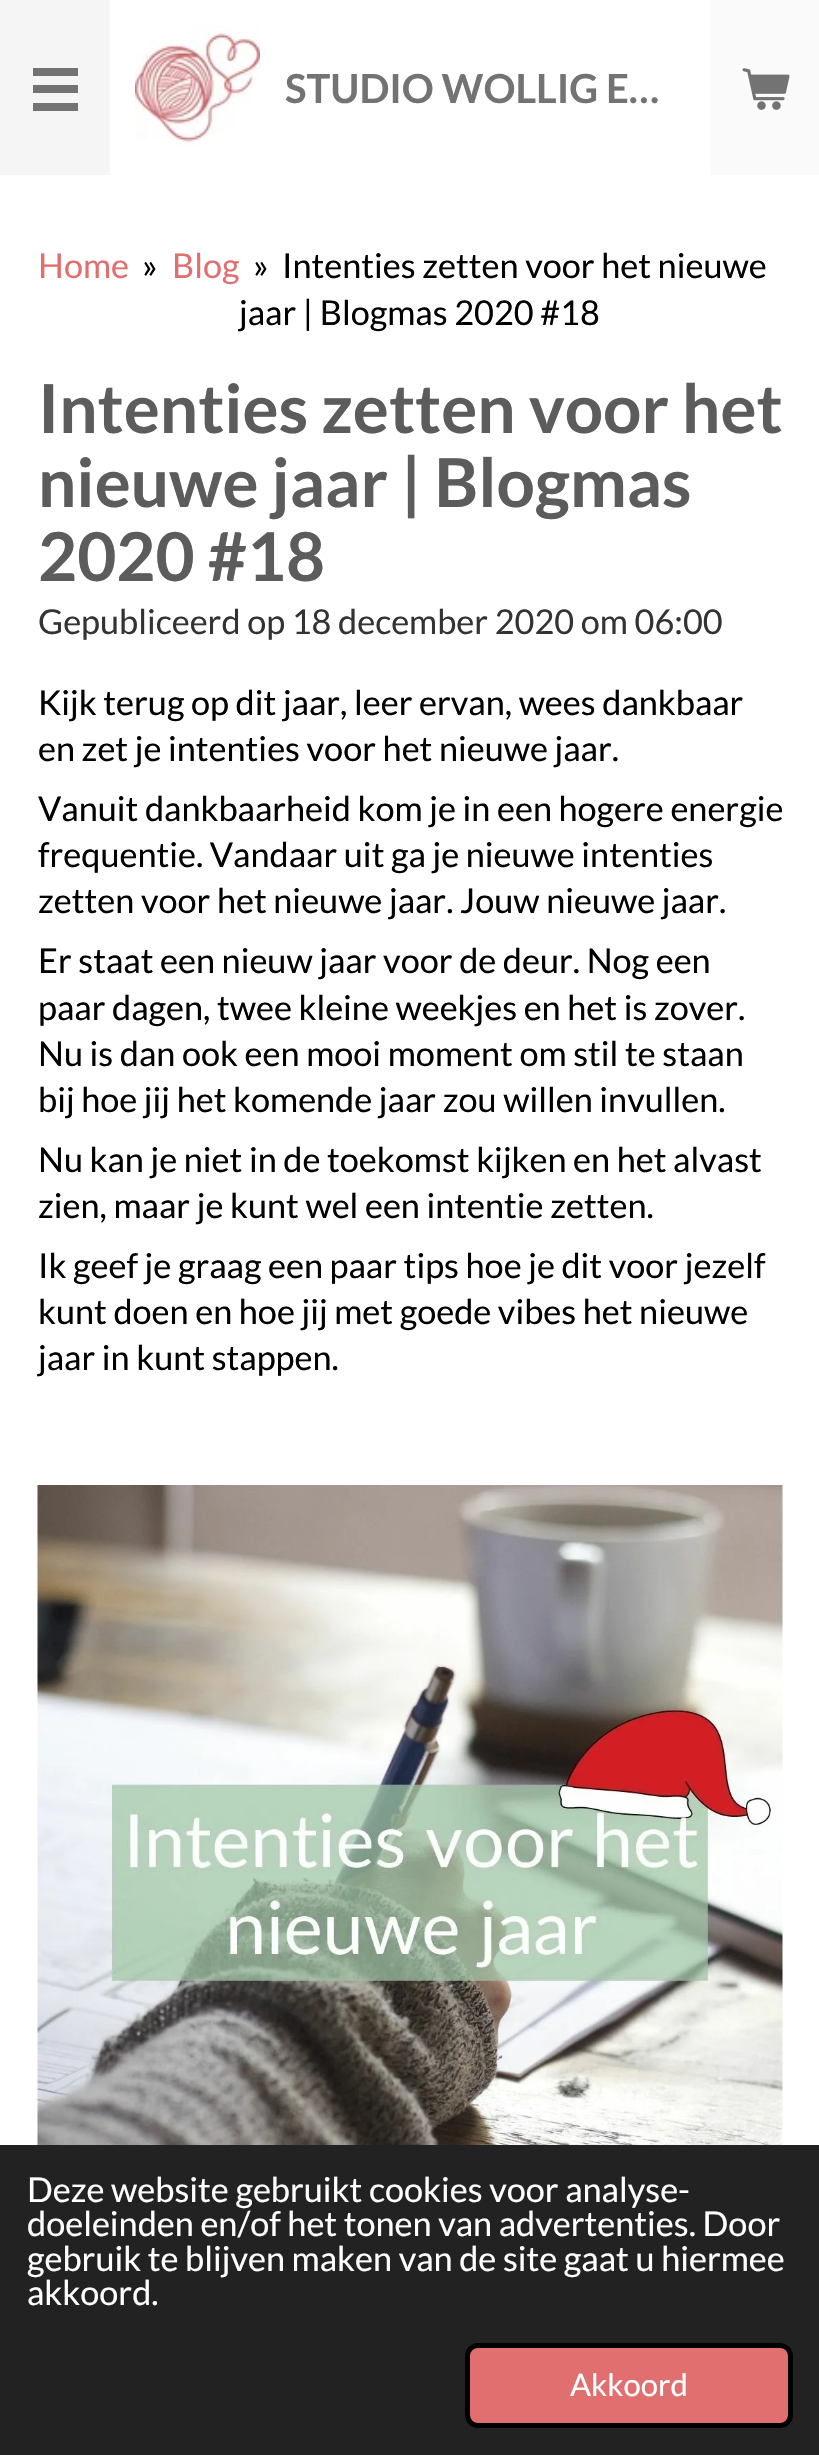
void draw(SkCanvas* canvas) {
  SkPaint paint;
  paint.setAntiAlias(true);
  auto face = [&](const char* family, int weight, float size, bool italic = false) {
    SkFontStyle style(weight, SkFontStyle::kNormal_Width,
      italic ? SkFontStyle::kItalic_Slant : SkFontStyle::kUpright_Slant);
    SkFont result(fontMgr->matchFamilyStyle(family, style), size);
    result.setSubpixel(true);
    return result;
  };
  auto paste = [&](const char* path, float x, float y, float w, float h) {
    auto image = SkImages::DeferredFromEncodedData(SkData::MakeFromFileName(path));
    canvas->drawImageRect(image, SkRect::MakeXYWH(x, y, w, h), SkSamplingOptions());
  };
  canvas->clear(0xffffffff);
  {
    const struct { float x, y, w, h; SkColor color; } items[] = {
      {0, 0, 110, 175, 0xfff5f5f5},
      {33, 85, 45, 8, 0xff737373},
      {33, 68, 45, 8, 0xff737373},
      {33, 103, 45, 8, 0xff737373},
    };
    for (auto [x, y, w, h, color] : items) {
      paint.setColor(color);
      canvas->drawRect(SkRect::MakeXYWH(x, y, w, h), paint);
    }
  }
  paste("img/1.png", 135, 25, 125, 121);
  paint.setColor(0xfffafafa);
  canvas->drawRect(SkRect::MakeXYWH(710, 0, 109, 175), paint);
  paste("img/2.png", 742, 68, 48, 42);
  paste("img/3.png", 37, 1485, 746, 660);
  paint.setColor(0xff222222);
  canvas->drawRect(SkRect::MakeXYWH(0, 2145, 819, 310), paint);
  paint.setColor(0xffe26f6f);
  canvas->drawRoundRect(SkRect::MakeXYWH(467.5f, 2345.5f, 323, 80), 10.5f, 10.5f, paint);
  paint.setStroke(true);
  paint.setStrokeWidth(5);
  paint.setColor(0xff000000);
  canvas->drawRoundRect(SkRect::MakeXYWH(467.5f, 2345.5f, 323, 80), 10.5f, 10.5f, paint);
  auto f0 = face("Lato", 700, 40);
  paint.setStroke(false);
  paint.setColor(0xff737373);
  canvas->drawString("STUDIO WOLLIG E…", 285, 103, f0, paint);
  auto f1 = face("Lato", 400, 34.25f);
  paint.setColor(0xffe26f6f);
  canvas->drawString("Home", 38, 278, f1, paint);
  paint.setColor(0xff000000);
  canvas->drawString("»", 142, 278, f1, paint);
  paint.setColor(0xffe26f6f);
  canvas->drawString("Blog", 172, 278, f1, paint);
  paint.setColor(0xff000000);
  {
    const struct { const char* s; float x, y; } items[] = {
      {"»", 253, 278},
      {"Intenties zetten voor het nieuwe", 282, 278},
      {"jaar | Blogmas 2020 #18", 239, 325},
    };
    for (auto [s, x, y] : items) {
      canvas->drawString(s, x, y, f1, paint);
    }
  }
  auto f2 = face("Lato", 700, 67.5f);
  paint.setColor(0xff5c5c5c);
  {
    const struct { const char* s; float x, y; } items[] = {
      {"Intenties zetten voor het", 38, 433},
      {"nieuwe jaar | Blogmas", 38, 507},
      {"2020 #18", 38, 581},
    };
    for (auto [s, x, y] : items) {
      canvas->drawString(s, x, y, f2, paint);
    }
  }
  paint.setColor(0xff333333);
  canvas->drawString("Gepubliceerd op 18 december 2020 om 06:00", 38, 634, f1, paint);
  paint.setColor(0xff000000);
  {
    const struct { const char* s; float x, y; } items[] = {
      {"Kijk terug op dit jaar, leer ervan, wees dankbaar", 38, 715},
      {"en zet je intenties voor het nieuwe jaar.", 38, 761},
      {"Vanuit dankbaarheid kom je in een hogere energie", 38, 821},
      {"frequentie. Vandaar uit ga je nieuwe intenties", 38, 867},
      {"zetten voor het nieuwe jaar. Jouw nieuwe jaar.", 38, 913},
      {"Er staat een nieuw jaar voor de deur. Nog een", 38, 973},
      {"paar dagen, twee kleine weekjes en het is zover.", 38, 1020},
      {"Nu is dan ook een mooi moment om stil te staan", 38, 1066},
      {"bij hoe jij het komende jaar zou willen invullen.", 38, 1112},
      {"Nu kan je niet in de toekomst kijken en het alvast", 38, 1172},
      {"zien, maar je kunt wel een intentie zetten.", 38, 1218},
      {"Ik geef je graag een paar tips hoe je dit voor jezelf", 38, 1278},
      {"kunt doen en hoe jij met goede vibes het nieuwe", 38, 1324},
      {"jaar in kunt stappen.", 38, 1370},
    };
    for (auto [s, x, y] : items) {
      canvas->drawString(s, x, y, f1, paint);
    }
  }
  paint.setColor(0xffffffff);
  {
    const struct { const char* s; float x, y; } items[] = {
      {"Deze website gebruikt cookies voor analyse-", 27, 2202},
      {"doeleinden en/of het tonen van advertenties. Door", 27, 2236},
      {"gebruik te blijven maken van de site gaat u hiermee", 27, 2271},
      {"akkoord.", 27, 2305},
    };
    for (auto [s, x, y] : items) {
      canvas->drawString(s, x, y, f1, paint);
    }
  }
  auto f3 = face("Lato", 400, 31);
  canvas->drawString("Akkoord", 570, 2396, f3, paint);
}
